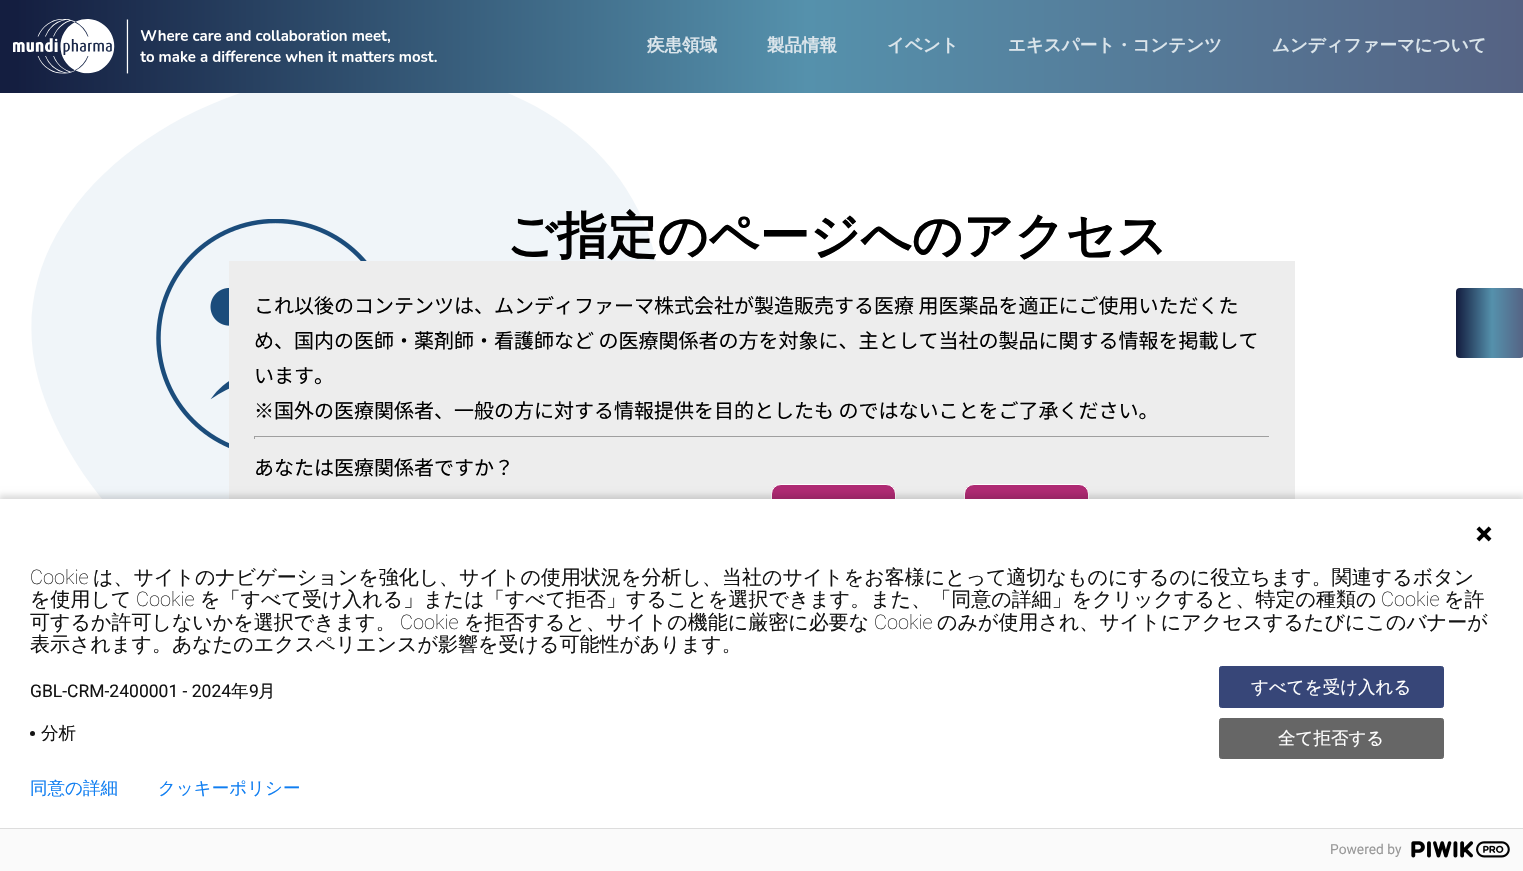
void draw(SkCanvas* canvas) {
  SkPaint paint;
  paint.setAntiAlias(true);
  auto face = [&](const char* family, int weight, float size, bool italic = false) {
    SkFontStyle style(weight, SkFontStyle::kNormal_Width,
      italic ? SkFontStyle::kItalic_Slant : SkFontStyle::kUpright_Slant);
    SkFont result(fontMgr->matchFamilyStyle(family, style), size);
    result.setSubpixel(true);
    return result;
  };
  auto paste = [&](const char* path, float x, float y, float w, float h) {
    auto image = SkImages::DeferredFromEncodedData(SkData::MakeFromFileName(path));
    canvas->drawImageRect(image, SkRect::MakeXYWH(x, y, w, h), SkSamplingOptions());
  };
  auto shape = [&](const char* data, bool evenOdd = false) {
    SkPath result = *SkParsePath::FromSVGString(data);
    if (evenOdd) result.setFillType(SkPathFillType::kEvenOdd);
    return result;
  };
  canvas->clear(0xffffffff);
  paint.setColor(0xfff0f5f9);
  canvas->drawPath(shape("M345 70C535 52 703 184 652 378C600 571 504 453 394 575C284 697 79 531 38 378C-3 224 154 89 345 70Z"), paint);
  {
    const SkColor colors[] = {0xff141e40, 0xff5591ac, 0xff556283};
    const float stops[] = {0.01f, 0.53f, 1};
    const SkPoint ends[] = {{0, 46}, {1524, 46}};
    paint.setShader(SkGradientShader::MakeLinear(ends, colors, stops, 3, SkTileMode::kClamp));
    paint.setAlpha(255);
  }
  canvas->drawRect(SkRect::MakeXYWH(0, 0, 1523, 93), paint);
  paste("img/1.png", 13, 19, 424, 55);
  {
    const SkColor colors[] = {0xff141e40, 0xff5591ac, 0xff556283};
    const float stops[] = {0.01f, 0.53f, 1};
    const SkPoint ends[] = {{1456, 323}, {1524, 323}};
    paint.setShader(SkGradientShader::MakeLinear(ends, colors, stops, 3, SkTileMode::kClamp));
    paint.setAlpha(255);
  }
  canvas->drawRoundRect(SkRect::MakeXYWH(1456, 288, 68, 70), 4, 4, paint);
  paste("img/2.png", 156, 219, 211, 229);
  paint.setShader(nullptr);
  {
    const struct { float x, y, w, h; SkColor color; } items[] = {
      {229, 261, 1066, 238, 0xffededed},
      {254, 436, 1016, 1, 0xff9f9f9f},
      {1269, 436, 1, 3, 0xffeeeeee},
      {254, 436, 1, 3, 0xff9f9f9f},
    };
    for (auto [x, y, w, h, color] : items) {
      paint.setColor(color);
      canvas->drawRect(SkRect::MakeXYWH(x, y, w, h), paint);
    }
  }
  paint.setColor(0xffaf2a73);
  canvas->drawRoundRect(SkRect::MakeXYWH(771.5f, 484.5f, 124, 50), 9.5f, 9.5f, paint);
  paint.setStroke(true);
  paint.setStrokeWidth(1);
  paint.setColor(0xffffffff);
  canvas->drawRoundRect(SkRect::MakeXYWH(771.5f, 484.5f, 124, 50), 9.5f, 9.5f, paint);
  paint.setStroke(false);
  paint.setColor(0xffaf2a73);
  canvas->drawRoundRect(SkRect::MakeXYWH(964.5f, 484.5f, 124, 50), 9.5f, 9.5f, paint);
  paint.setStroke(true);
  paint.setColor(0xffffffff);
  canvas->drawRoundRect(SkRect::MakeXYWH(964.5f, 484.5f, 124, 50), 9.5f, 9.5f, paint);
  paint.setStroke(false);
  paint.setColor(0x24000000);
  paint.setMaskFilter(SkMaskFilter::MakeBlur(kNormal_SkBlurStyle, 3));
  canvas->drawRect(SkRect::MakeXYWH(-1, 495, 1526, 375), paint);
  paint.setMaskFilter(nullptr);
  paint.setColor(0xffffffff);
  canvas->drawRect(SkRect::MakeXYWH(0, 499, 1523, 329), paint);
  paste("img/3.png", 1476, 526, 16, 16);
  paint.setColor(0xff131313);
  canvas->drawCircle(32.5f, 733.5f, 2.5f, paint);
  paint.setColor(0xff374678);
  canvas->drawRoundRect(SkRect::MakeXYWH(1219.5f, 666.5f, 224, 41), 2, 2, paint);
  paint.setStroke(true);
  canvas->drawRoundRect(SkRect::MakeXYWH(1219.5f, 666.5f, 224, 41), 2, 2, paint);
  paint.setStroke(false);
  paint.setColor(0xff666666);
  canvas->drawRoundRect(SkRect::MakeXYWH(1219.5f, 718.5f, 224, 40), 2, 2, paint);
  paint.setStroke(true);
  canvas->drawRoundRect(SkRect::MakeXYWH(1219.5f, 718.5f, 224, 40), 2, 2, paint);
  paint.setStroke(false);
  paint.setColor(0xfffafafa);
  canvas->drawRect(SkRect::MakeXYWH(0, 829, 1523, 42), paint);
  paint.setColor(0xffdddddd);
  canvas->drawRect(SkRect::MakeXYWH(0, 828, 1523, 1), paint);
  paste("img/4.png", 1411, 841, 99, 17);
  auto f0 = face("WenQuanYi Zen Hei", 700, 17.5f);
  paint.setColor(0xffdbe5eb);
  {
    const struct { const char* s; float x, y; } items[] = {
      {"疾患領域", 647, 51},
      {"製品情報", 767, 51},
      {"イベント", 887, 51},
      {"エキスパート・コンテンツ", 1008, 51},
      {"ムンディファーマについて", 1272, 51},
    };
    for (auto [s, x, y] : items) {
      canvas->drawString(s, x, y, f0, paint);
    }
  }
  auto f1 = face("WenQuanYi Zen Hei", 700, 50);
  paint.setColor(0xff000000);
  canvas->drawString("ご指定のページへのアクセス", 506, 253, f1, paint);
  auto f2 = face("Noto Sans JP", 400, 20);
  {
    const struct { const char* s; float x, y; } items[] = {
      {"これ以後のコンテンツは、ムンディファーマ株式会社が製造販売する医療 用医薬品を適正にご使用いただくた", 254, 313},
      {"め、国内の医師・薬剤師・看護師など の医療関係者の方を対象に、主として当社の製品に関する情報を掲載して", 254, 348},
      {"います。", 254, 383},
      {"※国外の医療関係者、一般の方に対する情報提供を目的としたも のではないことをご了承ください。", 254, 418},
      {"あなたは医療関係者ですか？", 254, 475},
    };
    for (auto [s, x, y] : items) {
      canvas->drawString(s, x, y, f2, paint);
    }
  }
  auto f3 = face("Roboto", 100, 20);
  paint.setColor(0xff131313);
  canvas->drawString("Cookie", 30, 584, f3, paint);
  auto f4 = face("WenQuanYi Zen Hei", 500, 20);
  canvas->drawString("は、サイトのナビゲーションを強化し、サイトの使用状況を分析し、当社のサイトをお客様にとって適切なものにするのに役立ちます。関連するボタン", 93, 584, f4, paint);
  canvas->drawString("を使用して", 30, 606, f4, paint);
  canvas->drawString("Cookie", 136, 606, f3, paint);
  canvas->drawString("を「すべて受け入れる」または「すべて拒否」することを選択できます。また、「同意の詳細」をクリックすると、特定の種類の", 200, 606, f4, paint);
  canvas->drawString("Cookie", 1381, 606, f3, paint);
  canvas->drawString("を許", 1444, 606, f4, paint);
  canvas->drawString("可するか許可しないかを選択できます。", 30, 629, f4, paint);
  canvas->drawString("Cookie", 400, 629, f3, paint);
  canvas->drawString("を拒否すると、サイトの機能に厳密に必要な", 464, 629, f4, paint);
  canvas->drawString("Cookie", 874, 629, f3, paint);
  canvas->drawString("のみが使用され、サイトにアクセスするたびにこのバナーが", 937, 629, f4, paint);
  canvas->drawString("表示されます。あなたのエクスペリエンスが影響を受ける可能性があります。", 30, 651, f4, paint);
  auto f5 = face("Roboto", 400, 17.5f);
  canvas->drawString("GBL-CRM-2400001 - 2024", 30, 697, f5, paint);
  auto f6 = face("WenQuanYi Zen Hei", 500, 17.5f);
  canvas->drawString("年", 231, 697, f6, paint);
  canvas->drawString("9", 249, 697, f5, paint);
  canvas->drawString("月", 258, 697, f6, paint);
  canvas->drawString("分析", 41, 739, f6, paint);
  paint.setColor(0xffffffff);
  canvas->drawString("すべてを受け入れる", 1251, 693, f6, paint);
  canvas->drawString("全て拒否する", 1278, 744, f6, paint);
  paint.setColor(0xff107ef1);
  canvas->drawString("同意の詳細", 30, 794, f6, paint);
  canvas->drawString("クッキーポリシー", 158, 794, f6, paint);
  auto f7 = face("Roboto", 400, 13.75f);
  paint.setColor(0xff999999);
  canvas->drawString("Powered by", 1330, 854, f7, paint);
}
